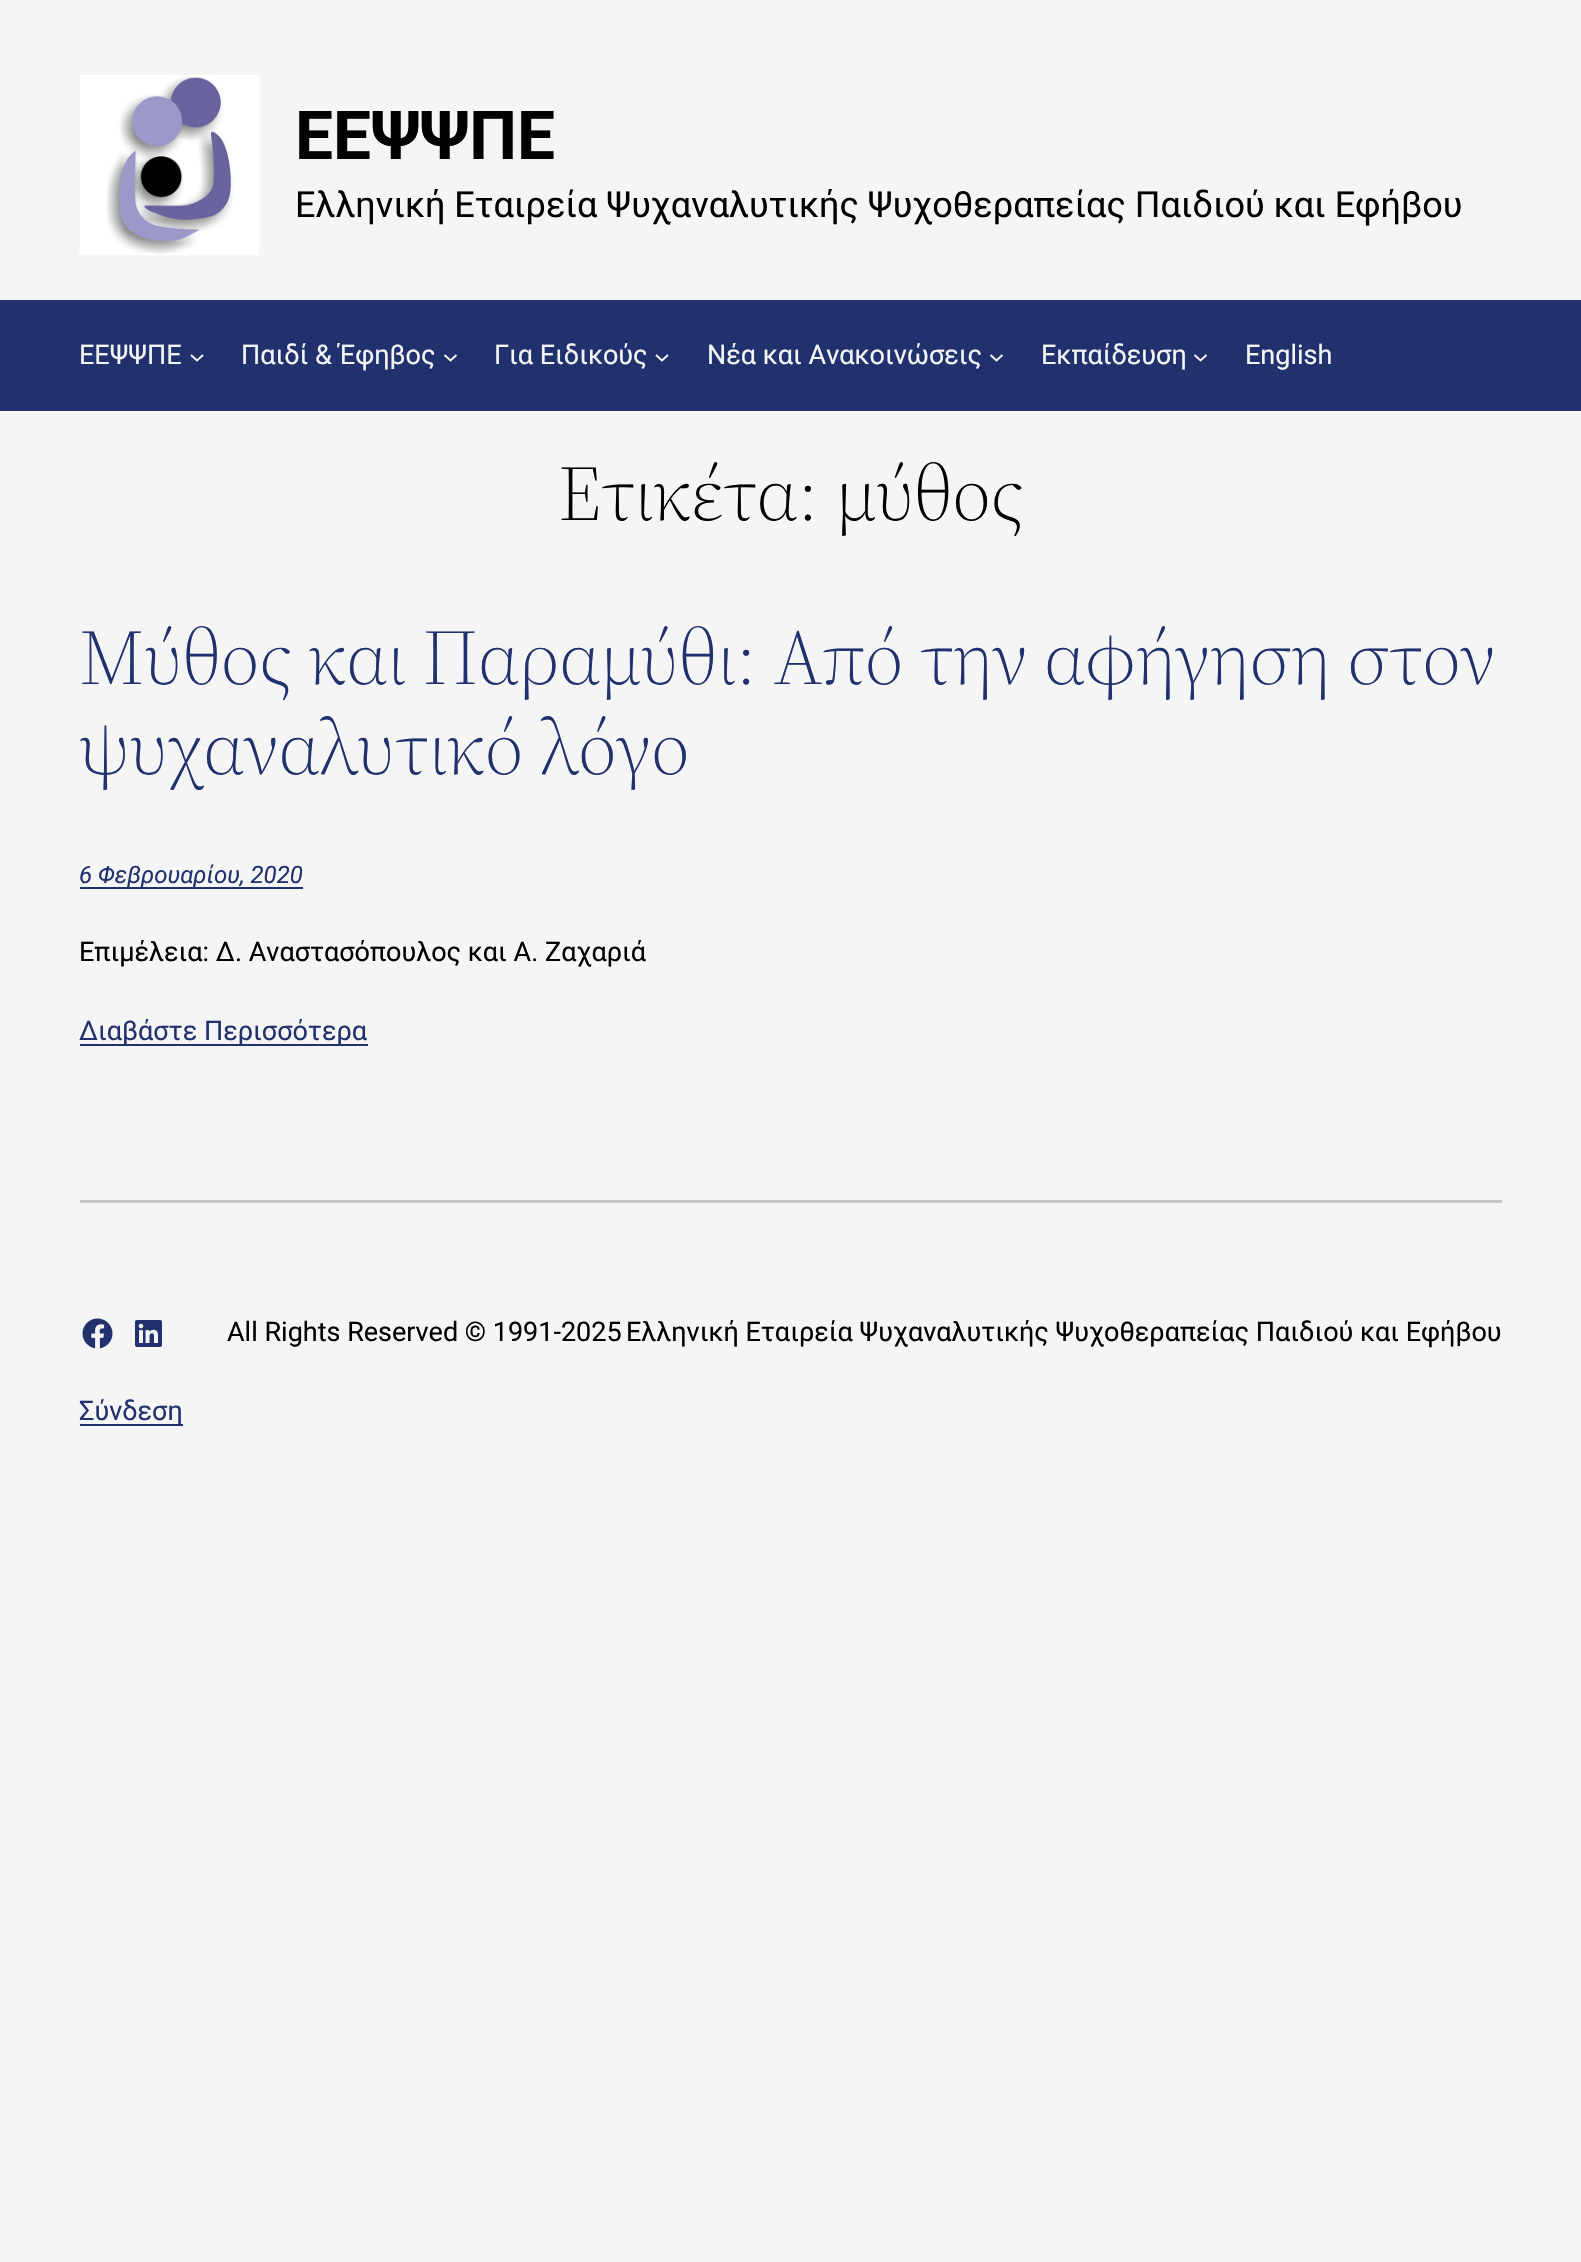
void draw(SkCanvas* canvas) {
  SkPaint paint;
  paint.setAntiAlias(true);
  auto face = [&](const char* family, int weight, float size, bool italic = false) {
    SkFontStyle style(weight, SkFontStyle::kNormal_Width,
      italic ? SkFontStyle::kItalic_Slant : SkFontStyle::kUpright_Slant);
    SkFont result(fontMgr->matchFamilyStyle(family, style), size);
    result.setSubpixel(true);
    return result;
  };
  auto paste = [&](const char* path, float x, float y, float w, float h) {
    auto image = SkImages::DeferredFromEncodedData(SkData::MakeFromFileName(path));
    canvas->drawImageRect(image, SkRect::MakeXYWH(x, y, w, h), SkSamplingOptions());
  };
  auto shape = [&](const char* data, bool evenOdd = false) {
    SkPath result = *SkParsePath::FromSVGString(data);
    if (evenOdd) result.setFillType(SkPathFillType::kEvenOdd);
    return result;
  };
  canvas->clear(0xfff5f5f5);
  paste("img/1.png", 79, 75, 181, 180);
  paint.setColor(0xff20316e);
  canvas->drawRect(SkRect::MakeXYWH(0, 300, 1581, 111), paint);
  paint.setStroke(true);
  paint.setStrokeWidth(2);
  paint.setColor(0xfff5f5f5);
  canvas->drawPath(shape("M191 355L197 360.5L203 355"), paint);
  canvas->drawPath(shape("M444.5 355L450.5 360.5L456.5 355"), paint);
  canvas->drawPath(shape("M656 355L662 360.5L668 355"), paint);
  canvas->drawPath(shape("M990.5 355L996.5 360.5L1002.5 355"), paint);
  canvas->drawPath(shape("M1194.5 355L1200.5 360.5L1206.5 355"), paint);
  paint.setStroke(false);
  {
    const struct { float x, y, w, h; SkColor color; } items[] = {
      {80, 887, 223, 2, 0xff20316e},
      {80, 1044, 288, 2, 0xff20316e},
      {80, 1200, 1422, 3, 0xffc6c6c6},
    };
    for (auto [x, y, w, h, color] : items) {
      paint.setColor(color);
      canvas->drawRect(SkRect::MakeXYWH(x, y, w, h), paint);
    }
  }
  paste("img/2.png", 82, 1318, 31, 31);
  paste("img/3.png", 135, 1320, 27, 27);
  paint.setColor(0xff20316e);
  canvas->drawRect(SkRect::MakeXYWH(80, 1424, 103, 2), paint);
  auto f0 = face("Roboto", 700, 67.5f);
  paint.setColor(0xff000000);
  canvas->drawString("ΕΕΨΨΠΕ", 295, 159, f0, paint);
  auto f1 = face("Roboto", 400, 36);
  canvas->drawString("Ελληνική Εταιρεία Ψυχαναλυτικής Ψυχοθεραπείας Παιδιού και Εφήβου", 295, 217, f1, paint);
  auto f2 = face("Roboto", 400, 27);
  paint.setColor(0xfff5f5f5);
  {
    const struct { const char* s; float x, y; } items[] = {
      {"ΕΕΨΨΠΕ", 79, 364},
      {"Παιδί & Έφηβος", 241, 364},
      {"Για Ειδικούς", 494, 364},
      {"Νέα και Ανακοινώσεις", 707, 364},
      {"Εκπαίδευση", 1041, 364},
      {"English", 1245, 364},
    };
    for (auto [s, x, y] : items) {
      canvas->drawString(s, x, y, f2, paint);
    }
  }
  auto f3 = face("Source Serif 4", 300, 78);
  paint.setColor(0xff000000);
  canvas->drawString("Ετικέτα: μύθος", 558, 520, f3, paint);
  paint.setColor(0xff20316e);
  canvas->drawString("Μύθος και Παραμύθι: Από την αφήγηση στον", 79, 684, f3, paint);
  canvas->drawString("ψυχαναλυτικό λόγο", 79, 774, f3, paint);
  auto f4 = face("Roboto", 400, 24, true);
  canvas->drawString("6 Φεβρουαρίου, 2020", 79, 883, f4, paint);
  paint.setColor(0xff000000);
  canvas->drawString("Επιμέλεια: Δ. Αναστασόπουλος και Α. Ζαχαριά", 79, 961, f2, paint);
  paint.setColor(0xff20316e);
  canvas->drawString("Διαβάστε Περισσότερα", 79, 1040, f2, paint);
  paint.setColor(0xff000000);
  canvas->drawString("All Rights Reserved © 1991-2025", 227, 1341, f2, paint);
  canvas->drawString("Ελληνική Εταιρεία Ψυχαναλυτικής Ψυχοθεραπείας Παιδιού και Εφήβου", 626, 1341, f2, paint);
  paint.setColor(0xff20316e);
  canvas->drawString("Σύνδεση", 79, 1420, f2, paint);
}
